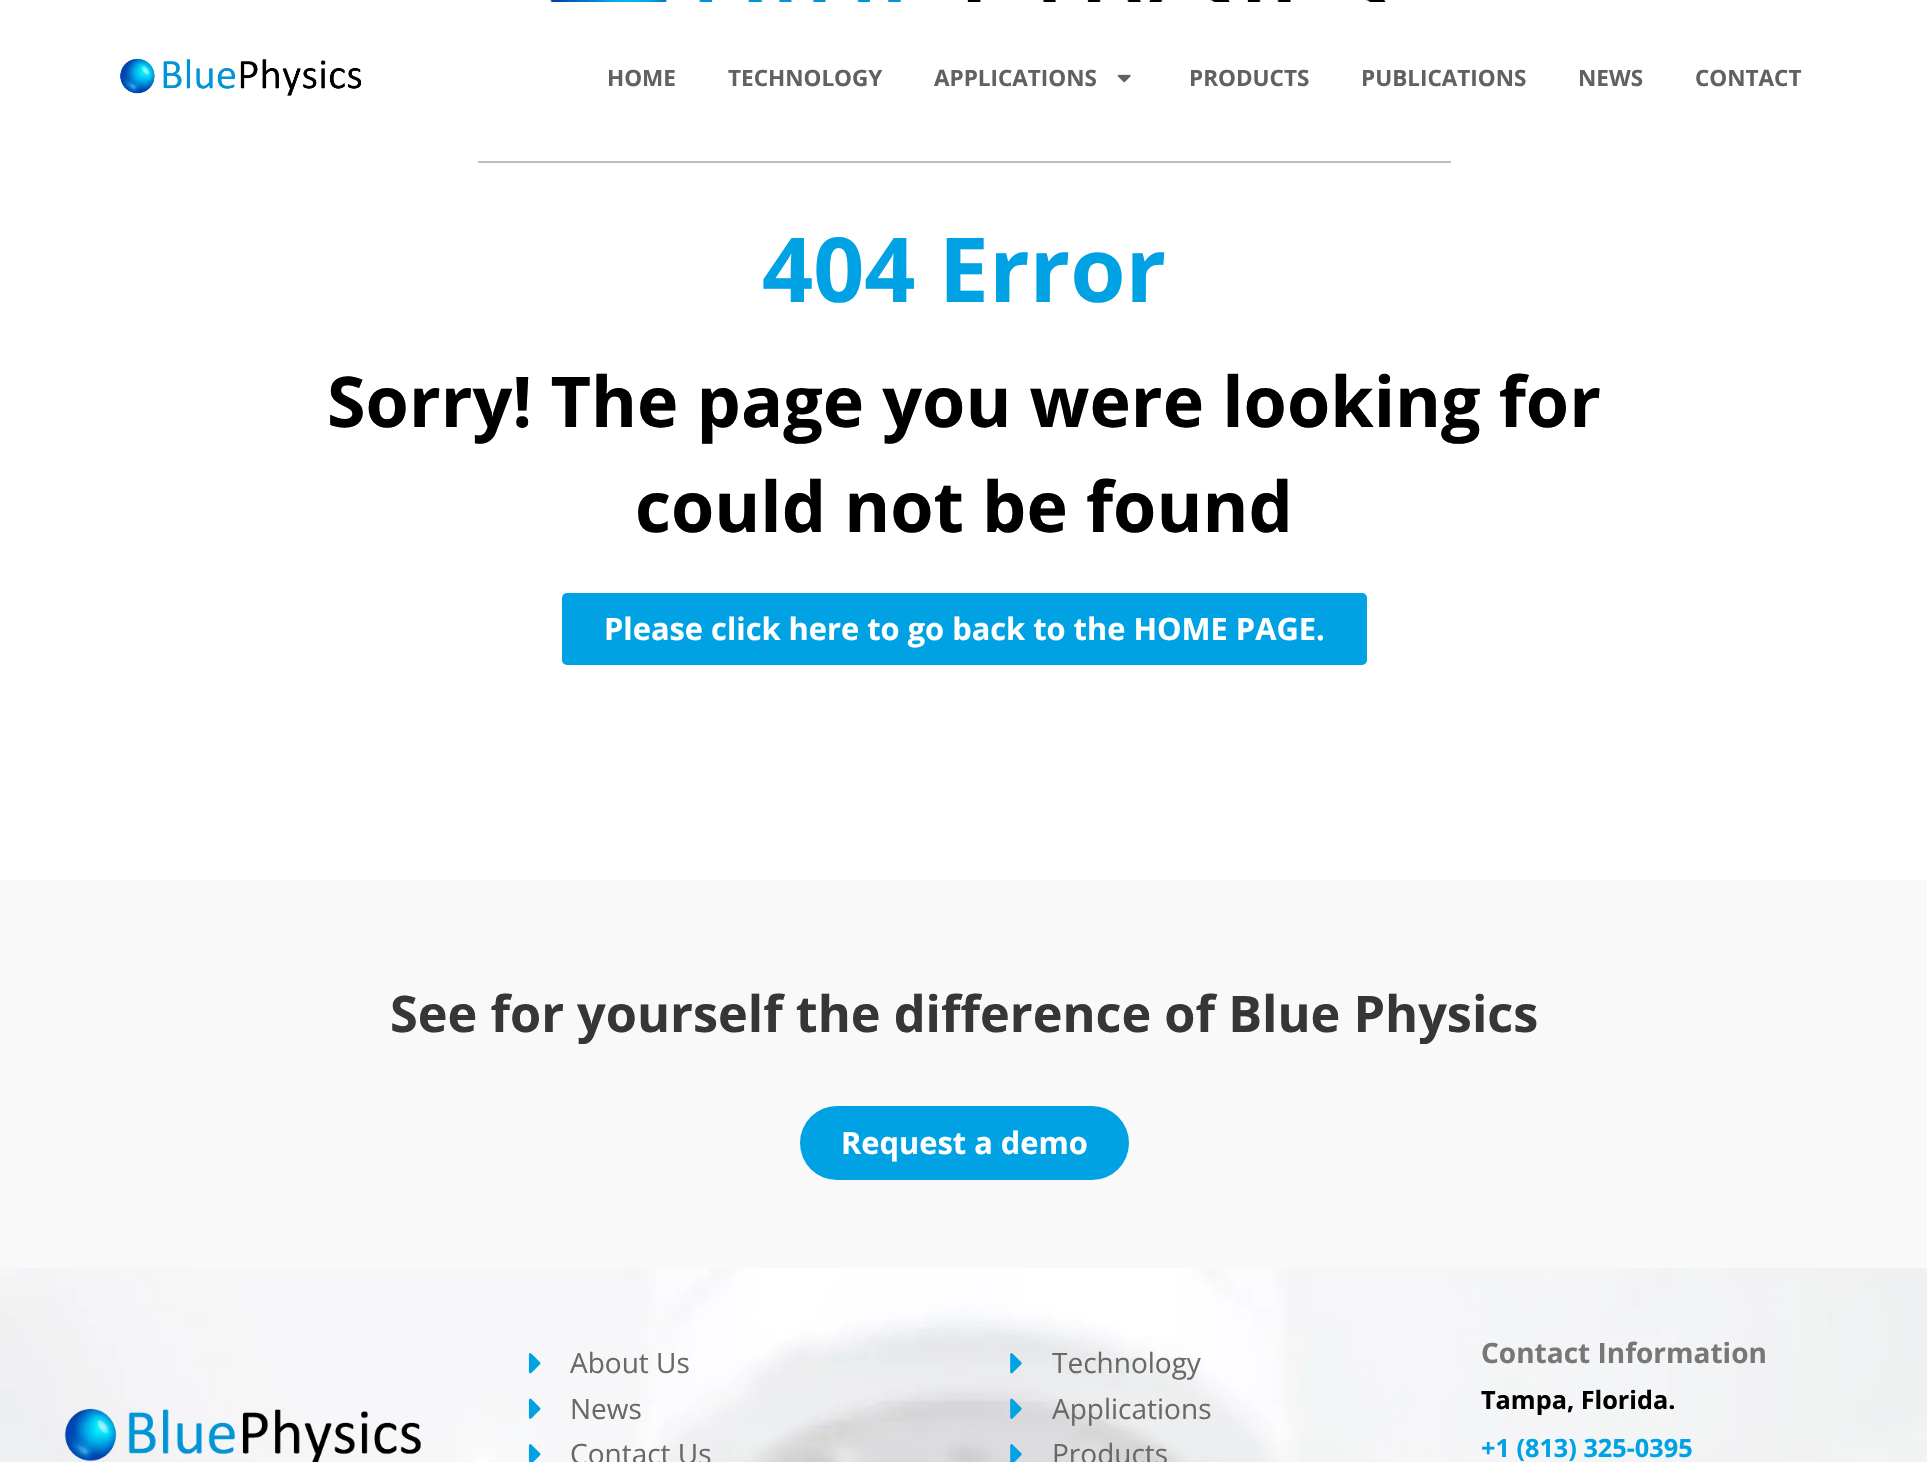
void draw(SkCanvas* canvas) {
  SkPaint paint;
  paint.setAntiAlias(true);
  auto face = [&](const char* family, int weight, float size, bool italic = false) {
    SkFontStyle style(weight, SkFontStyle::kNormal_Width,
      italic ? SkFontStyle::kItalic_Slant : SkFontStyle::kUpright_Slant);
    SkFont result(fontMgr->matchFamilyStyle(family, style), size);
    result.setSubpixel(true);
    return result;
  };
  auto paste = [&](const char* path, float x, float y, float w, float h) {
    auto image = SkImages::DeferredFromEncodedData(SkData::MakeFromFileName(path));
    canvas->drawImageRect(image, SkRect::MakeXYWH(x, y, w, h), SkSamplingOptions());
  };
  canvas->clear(0xffffffff);
  paste("img/1.png", 120, 58, 242, 38);
  paste("img/2.png", 1117, 74, 14, 9);
  paste("img/3.png", 550, 0, 836, 2);
  paint.setColor(0xffbebebe);
  canvas->drawRect(SkRect::MakeXYWH(478, 161, 973, 2), paint);
  paint.setColor(0xff00a2e3);
  canvas->drawRoundRect(SkRect::MakeXYWH(562, 593, 805, 72), 5, 5, paint);
  paint.setColor(0xfff9f9f9);
  canvas->drawRect(SkRect::MakeXYWH(0, 880, 1927, 389), paint);
  paint.setColor(0xff00a2e3);
  canvas->drawRoundRect(SkRect::MakeXYWH(800, 1106, 329, 74), 37, 37, paint);
  paste("img/4.png", 0, 1268, 1927, 194);
  paste("img/5.png", 64, 1408, 357, 54);
  paste("img/6.png", 528, 1353, 13, 21);
  paste("img/7.png", 528, 1398, 13, 21);
  paste("img/8.png", 528, 1444, 13, 18);
  paste("img/9.png", 1010, 1353, 12, 21);
  paste("img/10.png", 1010, 1398, 12, 21);
  paste("img/11.png", 1010, 1444, 12, 18);
  auto f0 = face("Open Sans", 700, 22.5f);
  paint.setColor(0xff616161);
  {
    const struct { const char* s; float x, y; } items[] = {
      {"HOME", 607, 86},
      {"TECHNOLOGY", 728, 86},
      {"APPLICATIONS", 934, 86},
      {"PRODUCTS", 1189, 86},
      {"PUBLICATIONS", 1361, 86},
      {"NEWS", 1578, 86},
      {"CONTACT", 1695, 86},
    };
    for (auto [s, x, y] : items) {
      canvas->drawString(s, x, y, f0, paint);
    }
  }
  auto f1 = face("Open Sans", 700, 89.5f);
  paint.setColor(0xff00a2e3);
  canvas->drawString("404 Error", 762, 302, f1, paint);
  auto f2 = face("Open Sans", 700, 70);
  paint.setColor(0xff000000);
  canvas->drawString("Sorry! The page you were looking for", 327, 427, f2, paint);
  canvas->drawString("could not be found", 635, 532, f2, paint);
  auto f3 = face("Open Sans", 700, 30.8f);
  paint.setColor(0xffffffff);
  canvas->drawString("Please click here to go back to the HOME PAGE.", 604, 640, f3, paint);
  auto f4 = face("Open Sans", 700, 50.4f);
  paint.setColor(0xff363636);
  canvas->drawString("See for yourself the difference of Blue Physics", 390, 1032, f4, paint);
  paint.setColor(0xffffffff);
  canvas->drawString("Request a demo", 841, 1154, f3, paint);
  auto f5 = face("Open Sans", 400, 28);
  paint.setColor(0xff696969);
  {
    const struct { const char* s; float x, y; } items[] = {
      {"About Us", 570, 1373},
      {"News", 570, 1419},
      {"Contact Us", 570, 1464},
      {"Technology", 1052, 1373},
      {"Applications", 1052, 1419},
      {"Products", 1052, 1464},
    };
    for (auto [s, x, y] : items) {
      canvas->drawString(s, x, y, f5, paint);
    }
  }
  auto f6 = face("Open Sans", 700, 28);
  paint.setColor(0xff777777);
  canvas->drawString("Contact Information", 1481, 1363, f6, paint);
  auto f7 = face("Open Sans", 700, 25.25f);
  paint.setColor(0xff000000);
  canvas->drawString("Tampa, Florida.", 1481, 1409, f7, paint);
  paint.setColor(0xff00a2e3);
  canvas->drawString("+1 (813) 325-0395", 1481, 1457, f7, paint);
}
